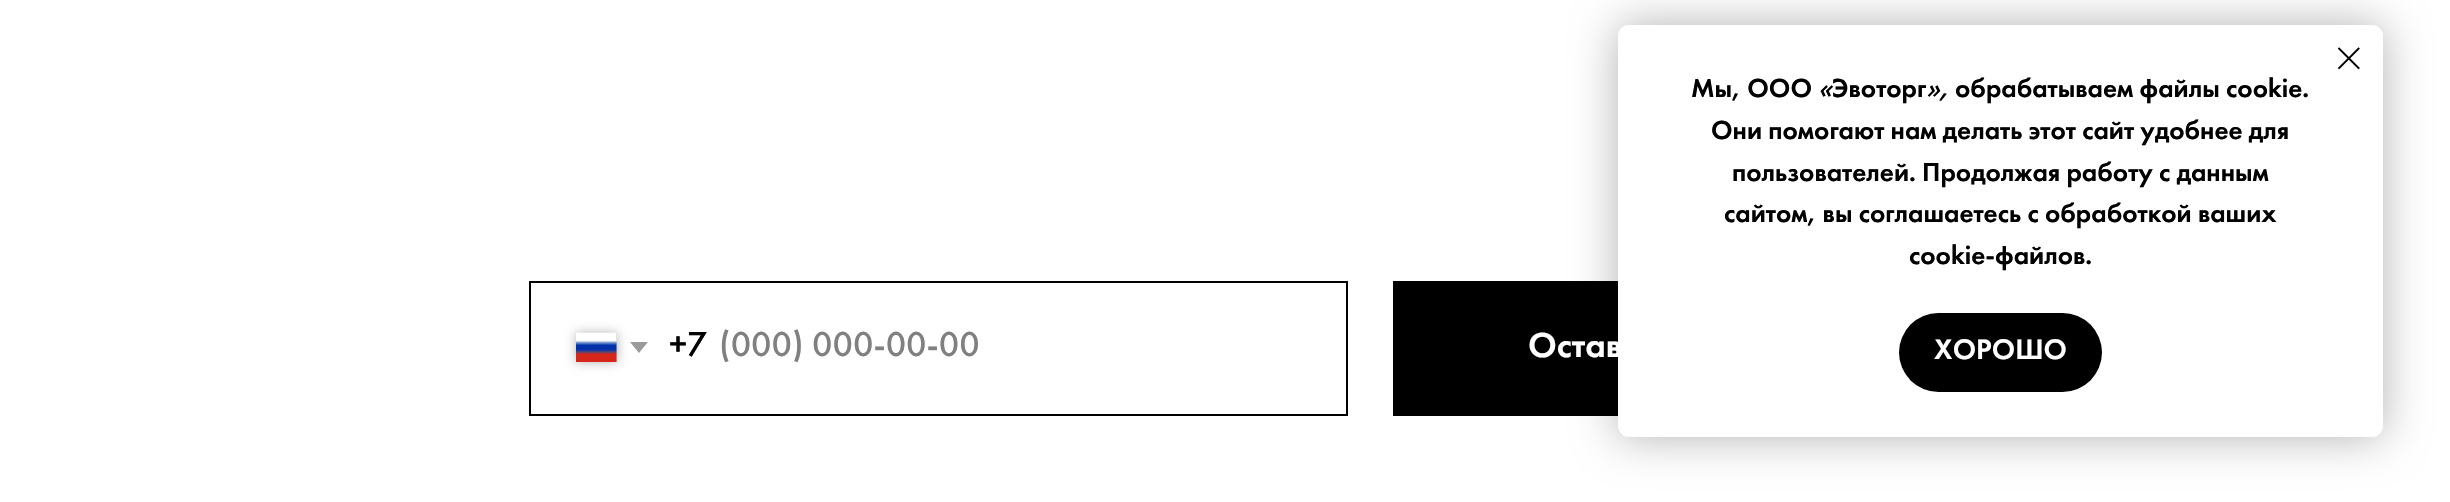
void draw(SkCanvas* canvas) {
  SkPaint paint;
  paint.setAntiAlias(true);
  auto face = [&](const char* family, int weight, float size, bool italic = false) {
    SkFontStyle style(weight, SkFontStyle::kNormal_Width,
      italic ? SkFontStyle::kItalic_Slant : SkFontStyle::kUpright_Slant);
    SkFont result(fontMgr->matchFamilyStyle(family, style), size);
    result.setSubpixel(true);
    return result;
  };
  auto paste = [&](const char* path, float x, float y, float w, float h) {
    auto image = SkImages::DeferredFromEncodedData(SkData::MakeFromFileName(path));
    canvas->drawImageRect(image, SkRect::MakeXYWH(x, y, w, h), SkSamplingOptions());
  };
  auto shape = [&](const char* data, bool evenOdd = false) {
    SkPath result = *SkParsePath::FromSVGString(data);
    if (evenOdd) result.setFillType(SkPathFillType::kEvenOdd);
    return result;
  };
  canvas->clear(0xffffffff);
  paint.setStroke(true);
  paint.setStrokeWidth(2);
  paint.setColor(0xff000000);
  canvas->drawRect(SkRect::MakeXYWH(530, 282, 817, 133), paint);
  paint.setStroke(false);
  paint.setColor(0x4d000000);
  paint.setMaskFilter(SkMaskFilter::MakeBlur(kNormal_SkBlurStyle, 5.5f));
  canvas->drawRect(SkRect::MakeXYWH(576, 333, 41, 29), paint);
  paint.setMaskFilter(nullptr);
  paint.setColor(0xffc5c5c5);
  canvas->drawRect(SkRect::MakeXYWH(616, 333, 1, 29), paint);
  paste("img/1.png", 576, 332, 41, 30);
  paint.setColor(0xff9a9a9a);
  canvas->drawPath(shape("M630 342H648L639 353Z"), paint);
  paint.setColor(0xff000000);
  canvas->drawRect(SkRect::MakeXYWH(1393, 281, 225, 135), paint);
  paint.setColor(0x4d000000);
  paint.setMaskFilter(SkMaskFilter::MakeBlur(kNormal_SkBlurStyle, 22.5f));
  canvas->drawRoundRect(SkRect::MakeXYWH(1618, 25, 765, 412), 11, 11, paint);
  paint.setMaskFilter(nullptr);
  paint.setColor(0xffffffff);
  canvas->drawRoundRect(SkRect::MakeXYWH(1618, 25, 765, 412), 11, 11, paint);
  paste("img/2.png", 2338, 47, 22, 23);
  paint.setColor(0xff000000);
  canvas->drawRoundRect(SkRect::MakeXYWH(1899, 313, 203, 79), 39.5f, 39.5f, paint);
  auto f0 = face("Futura PT", 500, 36);
  canvas->drawString("+7", 669, 356, f0, paint);
  paint.setColor(0xff808080);
  canvas->drawString("(000) 000-00-00", 719, 356, f0, paint);
  auto f1 = face("Futura PT", 400, 36);
  paint.setColor(0xffffffff);
  canvas->drawString("Остав", 1528, 357, f1, paint);
  auto f2 = face("Futura PT", 400, 27);
  paint.setColor(0xff000000);
  canvas->drawString("Мы, ООО", 1691, 97, f2, paint);
  auto f3 = face("Futura PT", 400, 27, true);
  canvas->drawString("«", 1818, 97, f3, paint);
  canvas->drawString("Эвоторг", 1832, 97, f2, paint);
  canvas->drawString("»,", 1926, 97, f3, paint);
  {
    const struct { const char* s; float x, y; } items[] = {
      {"обрабатываем файлы cookie.", 1955, 97},
      {"Они помогают нам делать этот сайт удобнее для", 1711, 139},
      {"пользователей. Продолжая работу с данным", 1732, 181},
      {"сайтом, вы соглашаетесь с обработкой ваших", 1724, 222},
      {"cookie-файлов.", 1909, 264},
    };
    for (auto [s, x, y] : items) {
      canvas->drawString(s, x, y, f2, paint);
    }
  }
  auto f4 = face("Futura PT", 400, 29.25f);
  paint.setColor(0xffffffff);
  canvas->drawString("ХОРОШО", 1934, 359, f4, paint);
}
